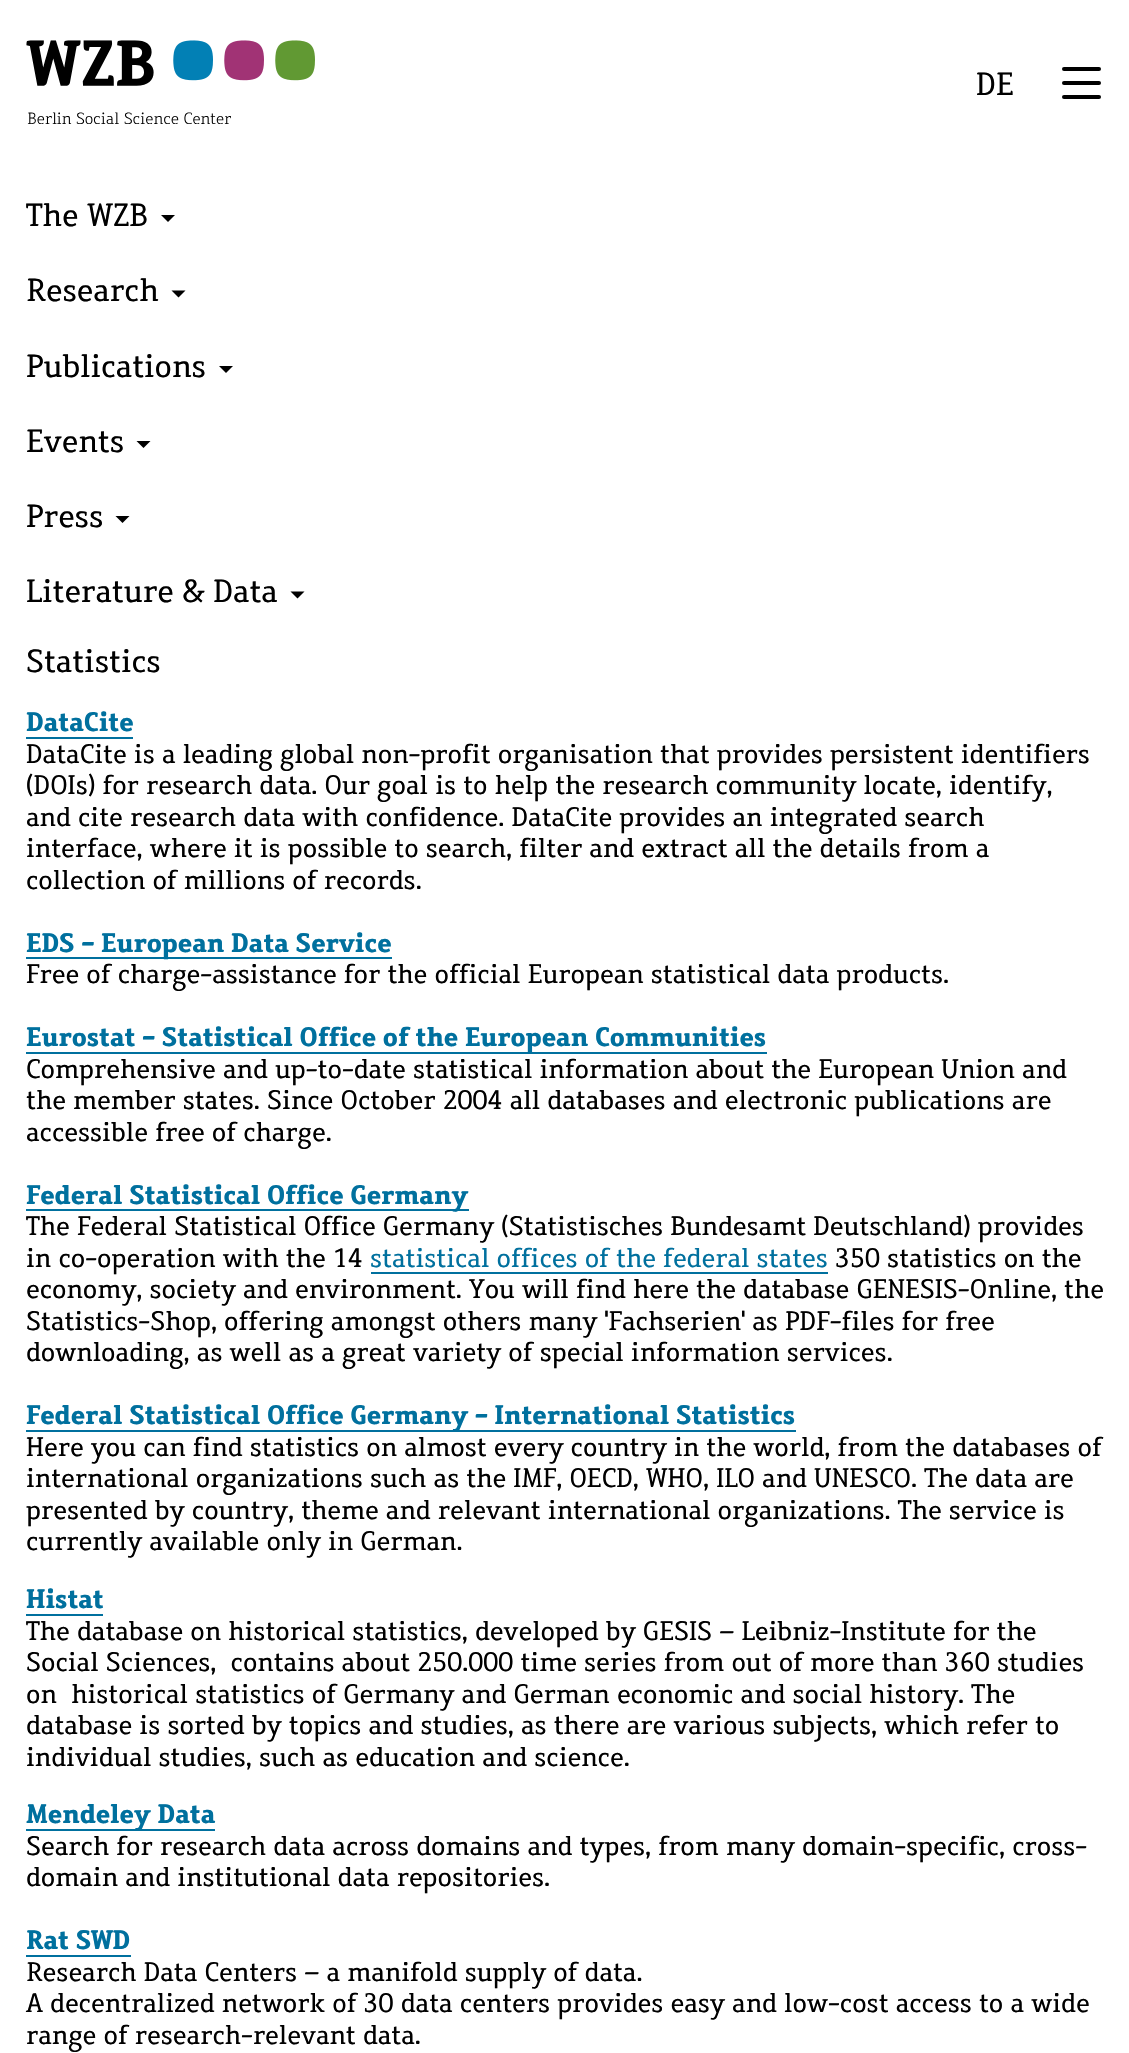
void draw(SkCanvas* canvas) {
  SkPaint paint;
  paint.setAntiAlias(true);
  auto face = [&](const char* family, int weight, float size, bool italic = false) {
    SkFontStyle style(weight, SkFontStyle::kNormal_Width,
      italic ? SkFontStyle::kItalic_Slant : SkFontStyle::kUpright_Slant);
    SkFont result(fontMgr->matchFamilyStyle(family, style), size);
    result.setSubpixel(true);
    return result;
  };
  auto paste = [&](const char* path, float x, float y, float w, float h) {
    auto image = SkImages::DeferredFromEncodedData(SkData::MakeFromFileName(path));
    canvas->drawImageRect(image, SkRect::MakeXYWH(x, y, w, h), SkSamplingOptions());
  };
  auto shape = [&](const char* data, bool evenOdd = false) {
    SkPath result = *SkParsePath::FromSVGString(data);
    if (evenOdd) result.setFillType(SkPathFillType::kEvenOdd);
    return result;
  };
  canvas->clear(0xffffffff);
  paste("img/1.png", 26, 40, 205, 84);
  paste("img/2.png", 173, 40, 142, 41);
  paint.setColor(0xff000000);
  canvas->drawRoundRect(SkRect::MakeXYWH(1062, 67, 39, 4), 2, 2, paint);
  canvas->drawRoundRect(SkRect::MakeXYWH(1062, 81, 39, 4), 2, 2, paint);
  canvas->drawRoundRect(SkRect::MakeXYWH(1062, 95, 39, 4), 2, 2, paint);
  canvas->drawPath(shape("M161 215H175L168 222Z"), paint);
  canvas->drawPath(shape("M171.5 290.5H185.5L178.5 297.5Z"), paint);
  canvas->drawPath(shape("M219 366H233L226 373Z"), paint);
  canvas->drawPath(shape("M136.5 441H150.5L143.5 448Z"), paint);
  canvas->drawPath(shape("M115.5 516H129.5L122.5 523Z"), paint);
  canvas->drawPath(shape("M290.5 591.5H304.5L297.5 598.5Z"), paint);
  {
    const struct { float x, y, w, h; SkColor color; } items[] = {
      {26, 737, 107, 2, 0xff00709e},
      {26, 957, 366, 2, 0xff00709e},
      {26, 1052, 741, 2, 0xff00709e},
      {26, 1209, 443, 2, 0xff00709e},
      {371, 1272, 457, 2, 0xff00709e},
      {26, 1430, 770, 2, 0xff00709e},
      {26, 1614, 77, 2, 0xff00709e},
      {26, 1829, 189, 2, 0xff00709e},
      {26, 1955, 105, 2, 0xff00709e},
    };
    for (auto [x, y, w, h, color] : items) {
      paint.setColor(color);
      canvas->drawRect(SkRect::MakeXYWH(x, y, w, h), paint);
    }
  }
  auto f0 = face("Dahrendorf", 400, 31.5f);
  paint.setColor(0xff000000);
  {
    const struct { const char* s; float x, y; } items[] = {
      {"DE", 976, 95},
      {"The WZB", 26, 226},
      {"Research", 26, 301},
      {"Publications", 26, 377},
      {"Events", 26, 452},
      {"Press", 26, 527},
      {"Literature & Data", 26, 602},
      {"Statistics", 26, 672},
    };
    for (auto [s, x, y] : items) {
      canvas->drawString(s, x, y, f0, paint);
    }
  }
  auto f1 = face("Dahrendorf", 700, 26.25f);
  paint.setColor(0xff00709e);
  canvas->drawString("DataCite", 26, 731, f1, paint);
  auto f2 = face("Dahrendorf", 400, 26.25f);
  paint.setColor(0xff000000);
  {
    const struct { const char* s; float x, y; } items[] = {
      {"DataCite is a leading global non-profit organisation that provides persistent identifiers", 26, 763},
      {"(DOIs) for research data. Our goal is to help the research community locate, identify,", 26, 794},
      {"and cite research data with confidence. DataCite provides an integrated search", 26, 826},
      {"interface, where it is possible to search, filter and extract all the details from a", 26, 857},
      {"collection of millions of records.", 26, 889},
    };
    for (auto [s, x, y] : items) {
      canvas->drawString(s, x, y, f2, paint);
    }
  }
  paint.setColor(0xff00709e);
  canvas->drawString("EDS - European Data Service", 26, 952, f1, paint);
  paint.setColor(0xff000000);
  canvas->drawString("Free of charge-assistance for the official European statistical data products.", 26, 983, f2, paint);
  paint.setColor(0xff00709e);
  canvas->drawString("Eurostat - Statistical Office of the European Communities", 26, 1046, f1, paint);
  paint.setColor(0xff000000);
  {
    const struct { const char* s; float x, y; } items[] = {
      {"Comprehensive and up-to-date statistical information about the European Union and", 26, 1078},
      {"the member states. Since October 2004 all databases and electronic publications are", 26, 1109},
      {"accessible free of charge.", 26, 1141},
    };
    for (auto [s, x, y] : items) {
      canvas->drawString(s, x, y, f2, paint);
    }
  }
  paint.setColor(0xff00709e);
  canvas->drawString("Federal Statistical Office Germany", 26, 1204, f1, paint);
  paint.setColor(0xff000000);
  canvas->drawString("The Federal Statistical Office Germany (Statistisches Bundesamt Deutschland) provides", 26, 1235, f2, paint);
  canvas->drawString("in co-operation with the 14", 26, 1267, f2, paint);
  paint.setColor(0xff00709e);
  canvas->drawString("statistical offices of the federal states", 370, 1267, f2, paint);
  paint.setColor(0xff000000);
  {
    const struct { const char* s; float x, y; } items[] = {
      {"350 statistics on the", 835, 1267},
      {"economy, society and environment. You will find here the database GENESIS-Online, the", 26, 1298},
      {"Statistics-Shop, offering amongst others many 'Fachserien' as PDF-files for free", 26, 1330},
      {"downloading, as well as a great variety of special information services.", 26, 1361},
    };
    for (auto [s, x, y] : items) {
      canvas->drawString(s, x, y, f2, paint);
    }
  }
  paint.setColor(0xff00709e);
  canvas->drawString("Federal Statistical Office Germany - International Statistics", 26, 1424, f1, paint);
  paint.setColor(0xff000000);
  {
    const struct { const char* s; float x, y; } items[] = {
      {"Here you can find statistics on almost every country in the world, from the databases of", 26, 1456},
      {"international organizations such as the IMF, OECD, WHO, ILO and UNESCO. The data are", 26, 1487},
      {"presented by country, theme and relevant international organizations. The service is", 26, 1519},
      {"currently available only in German.", 26, 1550},
    };
    for (auto [s, x, y] : items) {
      canvas->drawString(s, x, y, f2, paint);
    }
  }
  paint.setColor(0xff00709e);
  canvas->drawString("Histat", 26, 1608, f1, paint);
  paint.setColor(0xff000000);
  {
    const struct { const char* s; float x, y; } items[] = {
      {"The database on historical statistics, developed by GESIS – Leibniz-Institute for the", 26, 1640},
      {"Social Sciences,  contains about 250.000 time series from out of more than 360 studies", 26, 1671},
      {"on  historical statistics of Germany and German economic and social history. The", 26, 1703},
      {"database is sorted by topics and studies, as there are various subjects, which refer to", 26, 1734},
      {"individual studies, such as education and science.", 26, 1766},
    };
    for (auto [s, x, y] : items) {
      canvas->drawString(s, x, y, f2, paint);
    }
  }
  paint.setColor(0xff00709e);
  canvas->drawString("Mendeley Data", 26, 1823, f1, paint);
  paint.setColor(0xff000000);
  canvas->drawString("Search for research data across domains and types, from many domain-specific, cross-", 26, 1855, f2, paint);
  canvas->drawString("domain and institutional data repositories.", 26, 1886, f2, paint);
  paint.setColor(0xff00709e);
  canvas->drawString("Rat SWD", 26, 1949, f1, paint);
  paint.setColor(0xff000000);
  {
    const struct { const char* s; float x, y; } items[] = {
      {"Research Data Centers – a manifold supply of data.", 26, 1981},
      {"A decentralized network of 30 data centers provides easy and low-cost access to a wide", 26, 2012},
      {"range of research-relevant data.", 26, 2044},
    };
    for (auto [s, x, y] : items) {
      canvas->drawString(s, x, y, f2, paint);
    }
  }
}
